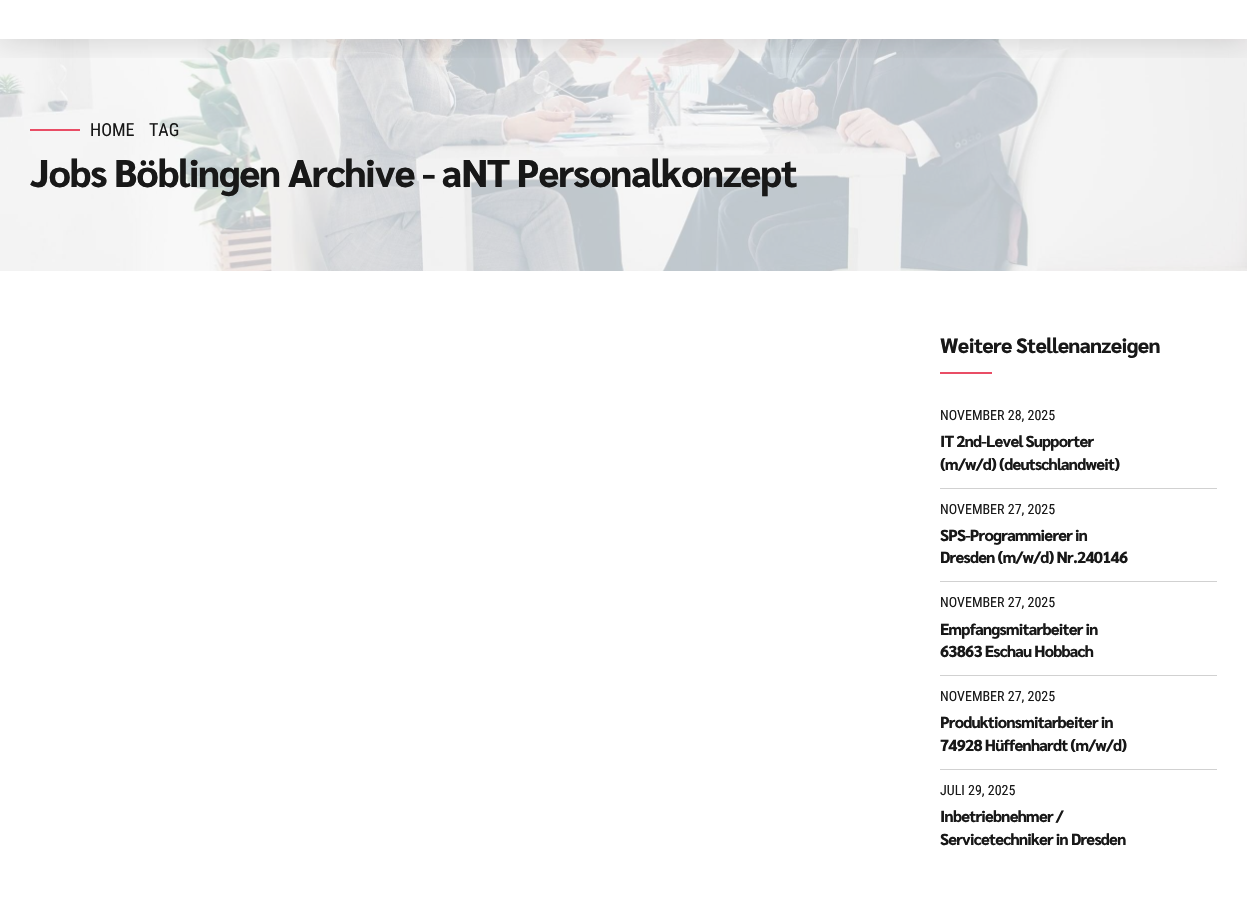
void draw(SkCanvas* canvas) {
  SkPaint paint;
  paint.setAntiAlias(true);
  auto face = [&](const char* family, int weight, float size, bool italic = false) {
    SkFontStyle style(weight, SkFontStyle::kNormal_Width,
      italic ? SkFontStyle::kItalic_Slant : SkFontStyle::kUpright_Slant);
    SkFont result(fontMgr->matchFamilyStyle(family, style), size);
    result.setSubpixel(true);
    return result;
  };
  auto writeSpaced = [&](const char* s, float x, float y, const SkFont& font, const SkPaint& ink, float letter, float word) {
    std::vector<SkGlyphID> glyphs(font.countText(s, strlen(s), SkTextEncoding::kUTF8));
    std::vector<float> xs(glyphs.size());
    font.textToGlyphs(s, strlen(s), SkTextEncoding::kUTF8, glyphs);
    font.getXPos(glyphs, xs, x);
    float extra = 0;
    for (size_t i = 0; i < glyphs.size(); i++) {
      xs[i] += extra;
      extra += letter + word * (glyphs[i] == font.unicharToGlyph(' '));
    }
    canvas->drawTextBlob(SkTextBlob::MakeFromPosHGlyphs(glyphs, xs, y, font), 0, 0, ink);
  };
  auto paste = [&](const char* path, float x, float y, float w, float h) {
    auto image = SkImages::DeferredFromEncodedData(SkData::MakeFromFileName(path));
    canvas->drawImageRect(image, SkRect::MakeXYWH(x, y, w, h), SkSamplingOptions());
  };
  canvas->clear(0xffffffff);
  paste("img/1.png", 0, 39, 1247, 232);
  canvas->save();
  canvas->clipRect(SkRect::MakeXYWH(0, 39, 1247, 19));
  paint.setColor(0x26000000);
  paint.setMaskFilter(SkMaskFilter::MakeBlur(kNormal_SkBlurStyle, 15));
  canvas->drawRect(SkRect::MakeXYWH(0, -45, 1247, 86), paint);
  paint.setMaskFilter(nullptr);
  canvas->restore();
  {
    const struct { float x, y, w, h; SkColor color; } items[] = {
      {30, 129, 50, 2, 0xffe94d65},
      {940, 372, 52, 2, 0xffe94d65},
      {940, 488, 277, 1, 0xffd1d1d1},
      {940, 581, 277, 1, 0xffd1d1d1},
      {940, 675, 277, 1, 0xffd1d1d1},
      {940, 769, 277, 1, 0xffd1d1d1},
    };
    for (auto [x, y, w, h, color] : items) {
      paint.setColor(color);
      canvas->drawRect(SkRect::MakeXYWH(x, y, w, h), paint);
    }
  }
  auto f0 = face("Roboto Condensed", 400, 18);
  paint.setColor(0xff181818);
  canvas->drawString("HOME", 90, 136, f0, paint);
  canvas->drawString("TAG", 149, 136, f0, paint);
  auto f1 = face("Sarabun", 800, 38.4f);
  writeSpaced("Jobs Böblingen Archive - aNT Personalkonzept", 30, 187, f1, paint, -1.15f, 0);
  auto f2 = face("Sarabun", 800, 20.75f);
  writeSpaced("Weitere Stellenanzeigen", 940, 353, f2, paint, -0.6f, 0);
  auto f3 = face("Roboto Condensed", 400, 14);
  canvas->drawString("NOVEMBER 28, 2025", 940, 420, f3, paint);
  auto f4 = face("Sarabun", 800, 16);
  writeSpaced("IT 2nd-Level Supporter", 940, 447, f4, paint, -0.75f, 0);
  writeSpaced("(m/w/d) (deutschlandweit)", 940, 470, f4, paint, -0.75f, 0);
  canvas->drawString("NOVEMBER 27, 2025", 940, 514, f3, paint);
  writeSpaced("SPS-Programmierer in", 940, 541, f4, paint, -0.75f, 0);
  writeSpaced("Dresden (m/w/d) Nr.240146", 940, 563, f4, paint, -0.75f, 0);
  canvas->drawString("NOVEMBER 27, 2025", 940, 607, f3, paint);
  writeSpaced("Empfangsmitarbeiter in", 940, 635, f4, paint, -0.75f, 0);
  writeSpaced("63863 Eschau Hobbach", 940, 657, f4, paint, -0.75f, 0);
  canvas->drawString("NOVEMBER 27, 2025", 940, 701, f3, paint);
  writeSpaced("Produktionsmitarbeiter in", 940, 728, f4, paint, -0.75f, 0);
  writeSpaced("74928 Hüffenhardt (m/w/d)", 940, 751, f4, paint, -0.75f, 0);
  canvas->drawString("JULI 29, 2025", 940, 795, f3, paint);
  writeSpaced("Inbetriebnehmer /", 940, 822, f4, paint, -0.75f, 0);
  writeSpaced("Servicetechniker in Dresden", 940, 845, f4, paint, -0.75f, 0);
}
